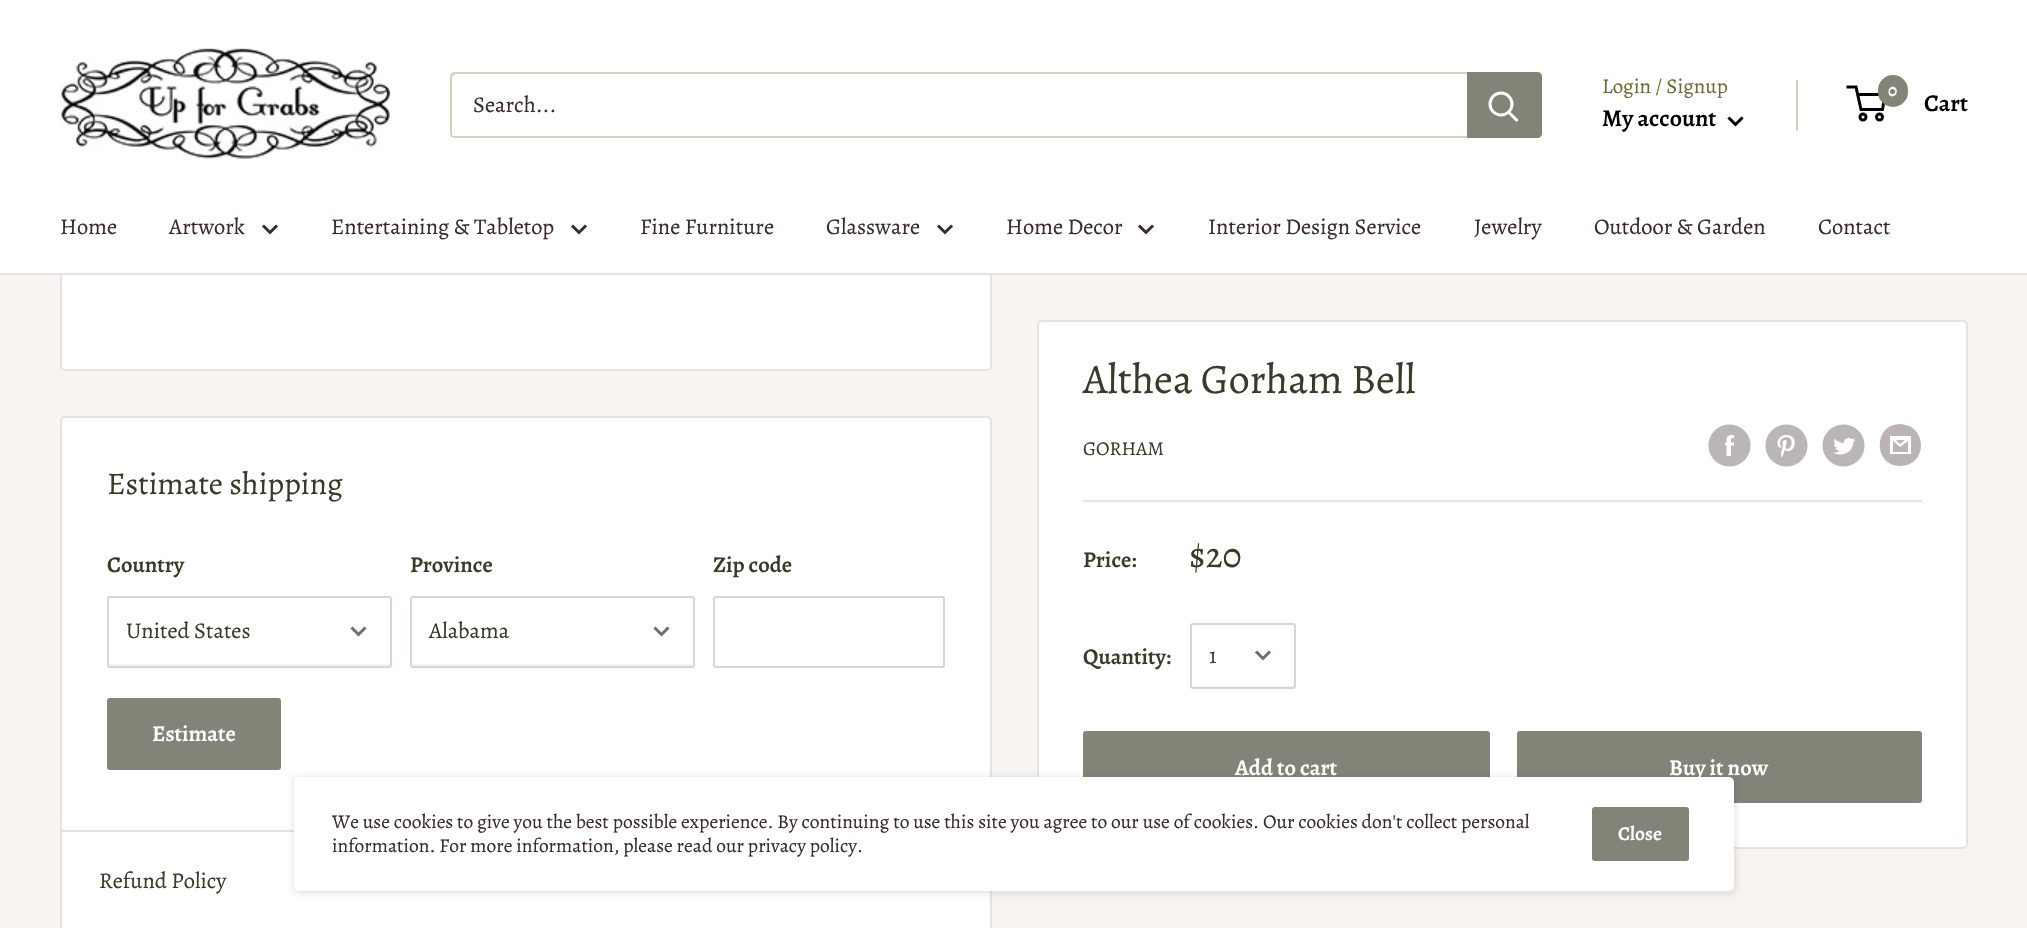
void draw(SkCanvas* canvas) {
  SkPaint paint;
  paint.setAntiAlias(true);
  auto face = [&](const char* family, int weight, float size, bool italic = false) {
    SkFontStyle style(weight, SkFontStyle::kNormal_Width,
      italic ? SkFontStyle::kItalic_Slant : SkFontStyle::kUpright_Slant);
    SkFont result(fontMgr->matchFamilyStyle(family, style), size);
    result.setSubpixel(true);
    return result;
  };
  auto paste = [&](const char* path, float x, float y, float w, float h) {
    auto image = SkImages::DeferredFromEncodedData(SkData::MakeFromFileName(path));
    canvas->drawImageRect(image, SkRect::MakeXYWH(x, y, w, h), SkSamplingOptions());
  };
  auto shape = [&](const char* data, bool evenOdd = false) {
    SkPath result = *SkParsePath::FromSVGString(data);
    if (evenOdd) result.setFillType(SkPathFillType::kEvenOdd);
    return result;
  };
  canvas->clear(0xfff7f4f2);
  paint.setColor(0xffffffff);
  canvas->drawRoundRect(SkRect::MakeXYWH(61, -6, 930, 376), 4, 4, paint);
  paint.setStroke(true);
  paint.setStrokeWidth(2);
  paint.setColor(0xffe7e2de);
  canvas->drawRoundRect(SkRect::MakeXYWH(61, -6, 930, 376), 4, 4, paint);
  paint.setStroke(false);
  paint.setColor(0xffffffff);
  canvas->drawRect(SkRect::MakeXYWH(0, 0, 2027, 273), paint);
  paste("img/1.png", 60, 48, 330, 112);
  paint.setColor(0xffd3d2c2);
  canvas->drawPath(shape("M451 135C451 137 453 138 455 138H1537C1540 138 1542 136 1542 133V77C1542 75 1541 73 1539 73L1540 75V132C1540 134 1538 136 1536 136H453Z"), paint);
  paint.setColor(0x4d6c6a35);
  canvas->drawPath(shape("M456 74H1539L1541 75C1541 73 1539 72 1537 72H455C452 72 450 74 450 77V133C450 135 451 137 453 137L452 135V78C452 76 454 74 456 74Z"), paint);
  paint.setColor(0xff838378);
  canvas->drawPath(shape("M1467 72H1537C1540 72 1542 74 1542 77V133C1542 136 1540 138 1537 138H1467Z"), paint);
  paint.setStroke(true);
  paint.setStrokeWidth(3);
  paint.setStrokeCap(SkPaint::kSquare_Cap);
  paint.setColor(0xffffffff);
  canvas->drawPath(shape("M1516.5 120L1509 112.5"), paint);
  paint.setStrokeCap(SkPaint::kButt_Cap);
  canvas->drawCircle(1501, 104, 11, paint);
  paint.setStroke(false);
  paint.setColor(0xffd3d2c2);
  canvas->drawRect(SkRect::MakeXYWH(1796, 80, 2, 51), paint);
  paint.setStroke(true);
  paint.setStrokeCap(SkPaint::kSquare_Cap);
  paint.setColor(0xff000000);
  canvas->drawPath(shape("M1741.5 118.5L1735.5 124.5L1729.5 118.5"), paint);
  paint.setStrokeCap(SkPaint::kButt_Cap);
  canvas->drawCircle(1863, 117, 3, paint);
  canvas->drawCircle(1879.5f, 117, 3, paint);
  canvas->drawPath(shape("M1857.5 94.5H1885L1882.5 109.5H1861L1856 87H1846.5"), paint);
  paint.setStroke(false);
  paint.setColor(0xff838378);
  canvas->drawRoundRect(SkRect::MakeXYWH(1878, 75, 30, 32), 15, 15, paint);
  paint.setColor(0xffe7e2de);
  canvas->drawRect(SkRect::MakeXYWH(0, 273, 2027, 2), paint);
  paint.setStroke(true);
  paint.setStrokeCap(SkPaint::kSquare_Cap);
  paint.setColor(0xff3a2a2f);
  canvas->drawPath(shape("M276 226.5L270 232.5L264 226.5"), paint);
  canvas->drawPath(shape("M585 226.5L579 232.5L573 226.5"), paint);
  canvas->drawPath(shape("M951 226.5L945 232.5L939 226.5"), paint);
  canvas->drawPath(shape("M1152 226.5L1146 232.5L1140 226.5"), paint);
  paint.setStroke(false);
  paint.setColor(0xffffffff);
  canvas->drawRoundRect(SkRect::MakeXYWH(61, 417, 930, 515), 4, 4, paint);
  paint.setStroke(true);
  paint.setStrokeWidth(2);
  paint.setStrokeCap(SkPaint::kButt_Cap);
  paint.setColor(0xffe7e2de);
  canvas->drawRoundRect(SkRect::MakeXYWH(61, 417, 930, 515), 4, 4, paint);
  paint.setStroke(false);
  paint.setColor(0xfff5f2f1);
  canvas->drawPath(shape("M108 663C108 664 108 666 110 666H388H390V663C390 664 389 664 388 664H110C109 664 108 664 108 663Z"), paint);
  paint.setStroke(true);
  paint.setColor(0xffdcd5cf);
  canvas->drawRoundRect(SkRect::MakeXYWH(108, 597, 283, 70), 2, 2, paint);
  paint.setStrokeWidth(3);
  paint.setStrokeCap(SkPaint::kSquare_Cap);
  paint.setColor(0xff756a6d);
  canvas->drawPath(shape("M364.5 628.5L358.5 634.5L352.5 628.5"), paint);
  paint.setStroke(false);
  paint.setColor(0xfff5f2f1);
  canvas->drawPath(shape("M411 663C411 664 411 666 412 666H692H693V663L692 664H412Z"), paint);
  paint.setStroke(true);
  paint.setStrokeWidth(2);
  paint.setStrokeCap(SkPaint::kButt_Cap);
  paint.setColor(0xffdcd5cf);
  canvas->drawRoundRect(SkRect::MakeXYWH(411, 597, 283, 70), 2, 2, paint);
  paint.setStrokeWidth(3);
  paint.setStrokeCap(SkPaint::kSquare_Cap);
  paint.setColor(0xff756a6d);
  canvas->drawPath(shape("M667.5 628.5L661.5 634.5L655.5 628.5"), paint);
  paint.setStrokeWidth(2);
  paint.setStrokeCap(SkPaint::kButt_Cap);
  paint.setColor(0xffdcd5cf);
  canvas->drawRoundRect(SkRect::MakeXYWH(714, 597, 230, 70), 2, 2, paint);
  paint.setStroke(false);
  paint.setColor(0xff838378);
  canvas->drawRoundRect(SkRect::MakeXYWH(107, 698, 174, 72), 3, 3, paint);
  paint.setColor(0xffe7e2de);
  canvas->drawRect(SkRect::MakeXYWH(62, 830, 232, 2), paint);
  paint.setColor(0xffffffff);
  canvas->drawRoundRect(SkRect::MakeXYWH(1038, 321, 929, 527), 4, 4, paint);
  paint.setStroke(true);
  paint.setColor(0xffe7e2de);
  canvas->drawRoundRect(SkRect::MakeXYWH(1038, 321, 929, 527), 4, 4, paint);
  paste("img/2.png", 1708, 424, 43, 43);
  paste("img/3.png", 1765, 424, 43, 43);
  paste("img/4.png", 1822, 424, 43, 43);
  paint.setStroke(false);
  paint.setColor(0xffbab4b6);
  canvas->drawPath(shape("M1900 466C1873 466 1873 424 1900 424C1928 425 1928 466 1900 466ZM1896 440H1905L1900 444ZM1908 441V452H1893V441L1900 447ZM1911 436H1890V454H1911Z"), paint);
  paint.setColor(0xffe7e2de);
  canvas->drawRect(SkRect::MakeXYWH(1083, 500, 839, 2), paint);
  paint.setColor(0xfff5f2f1);
  canvas->drawPath(shape("M1191 685C1191 691 1206 687 1209 687H1277C1301 687 1295 692 1295 666V625L1294 644V685L1293 686H1199C1197 686 1192 687 1191 685Z"), paint);
  paint.setStroke(true);
  paint.setColor(0xffdcd5cf);
  canvas->drawRoundRect(SkRect::MakeXYWH(1191, 624, 104, 64), 2, 2, paint);
  paint.setStrokeWidth(3);
  paint.setStrokeCap(SkPaint::kSquare_Cap);
  paint.setColor(0xff756a6d);
  canvas->drawPath(shape("M1269 652.5L1263 658.5L1257 652.5"), paint);
  paint.setStroke(false);
  paint.setColor(0xff838378);
  canvas->drawRoundRect(SkRect::MakeXYWH(1083, 731, 407, 72), 3, 3, paint);
  canvas->drawRoundRect(SkRect::MakeXYWH(1517, 731, 405, 72), 3, 3, paint);
  paint.setColor(0x1a000000);
  paint.setMaskFilter(SkMaskFilter::MakeBlur(kNormal_SkBlurStyle, 3));
  canvas->drawRoundRect(SkRect::MakeXYWH(293, 777, 1443, 117), 6, 6, paint);
  paint.setMaskFilter(nullptr);
  paint.setColor(0xffffffff);
  canvas->drawRoundRect(SkRect::MakeXYWH(294, 777, 1440, 114), 5, 5, paint);
  paint.setColor(0xff838378);
  canvas->drawRoundRect(SkRect::MakeXYWH(1592, 807, 97, 54), 3, 3, paint);
  auto f0 = face("Alegreya", 400, 22.5f);
  paint.setColor(0xff3a2a2f);
  canvas->drawString("Search...", 473, 112, f0, paint);
  auto f1 = face("Alegreya", 400, 21);
  paint.setColor(0xff6c6a35);
  canvas->drawString("Login / Signup", 1602, 93, f1, paint);
  auto f2 = face("Alegreya", 600, 24);
  paint.setColor(0xff000000);
  canvas->drawString("My account", 1602, 126, f2, paint);
  auto f3 = face("Alegreya", 600, 18);
  paint.setColor(0xffffffff);
  canvas->drawString("0", 1888, 96, f3, paint);
  paint.setColor(0xff000000);
  canvas->drawString("Cart", 1924, 111, f2, paint);
  paint.setColor(0xff3a2a2f);
  {
    const struct { const char* s; float x, y; } items[] = {
      {"Home", 60, 234},
      {"Artwork", 169, 234},
      {"Entertaining & Tabletop", 331, 234},
      {"Fine Furniture", 640, 234},
      {"Glassware", 826, 234},
      {"Home Decor", 1006, 234},
      {"Interior Design Service", 1208, 234},
      {"Jewelry", 1474, 234},
      {"Outdoor & Garden", 1594, 234},
      {"Contact", 1818, 234},
    };
    for (auto [s, x, y] : items) {
      canvas->drawString(s, x, y, f0, paint);
    }
  }
  auto f4 = face("Alegreya", 400, 31.5f);
  paint.setColor(0xff3a3a2a);
  canvas->drawString("Estimate shipping", 107, 494, f4, paint);
  auto f5 = face("Alegreya", 600, 22.5f);
  canvas->drawString("Country", 107, 572, f5, paint);
  canvas->drawString("United States", 126, 638, f0, paint);
  canvas->drawString("Province", 410, 572, f5, paint);
  canvas->drawString("Alabama", 429, 638, f0, paint);
  canvas->drawString("Zip code", 713, 572, f5, paint);
  paint.setColor(0xffffffff);
  canvas->drawString("Estimate", 152, 741, f5, paint);
  paint.setColor(0xff3a3a2a);
  canvas->drawString("Refund Policy", 99, 888, f0, paint);
  auto f6 = face("Alegreya", 400, 42);
  canvas->drawString("Althea Gorham Bell", 1083, 393, f6, paint);
  auto f7 = face("Alegreya", 400, 19.5f);
  canvas->drawString("GORHAM", 1083, 455, f7, paint);
  canvas->drawString("Price:", 1083, 567, f5, paint);
  auto f8 = face("Alegreya", 400, 36);
  canvas->drawString("$20", 1189, 567, f8, paint);
  canvas->drawString("Quantity:", 1083, 664, f5, paint);
  canvas->drawString("1", 1209, 663, f0, paint);
  paint.setColor(0xffffffff);
  canvas->drawString("Add to cart", 1235, 775, f5, paint);
  canvas->drawString("Buy it now", 1669, 775, f5, paint);
  paint.setColor(0xff3a2a2f);
  canvas->drawString("We use cookies to give you the best possible experience. By continuing to use this site you agree to our use of cookies. Our cookies don't collect personal", 332, 828, f7, paint);
  canvas->drawString("information. For more information, please read our privacy policy.", 332, 852, f7, paint);
  auto f9 = face("Alegreya", 600, 19.5f);
  paint.setColor(0xffffffff);
  canvas->drawString("Close", 1618, 840, f9, paint);
}
